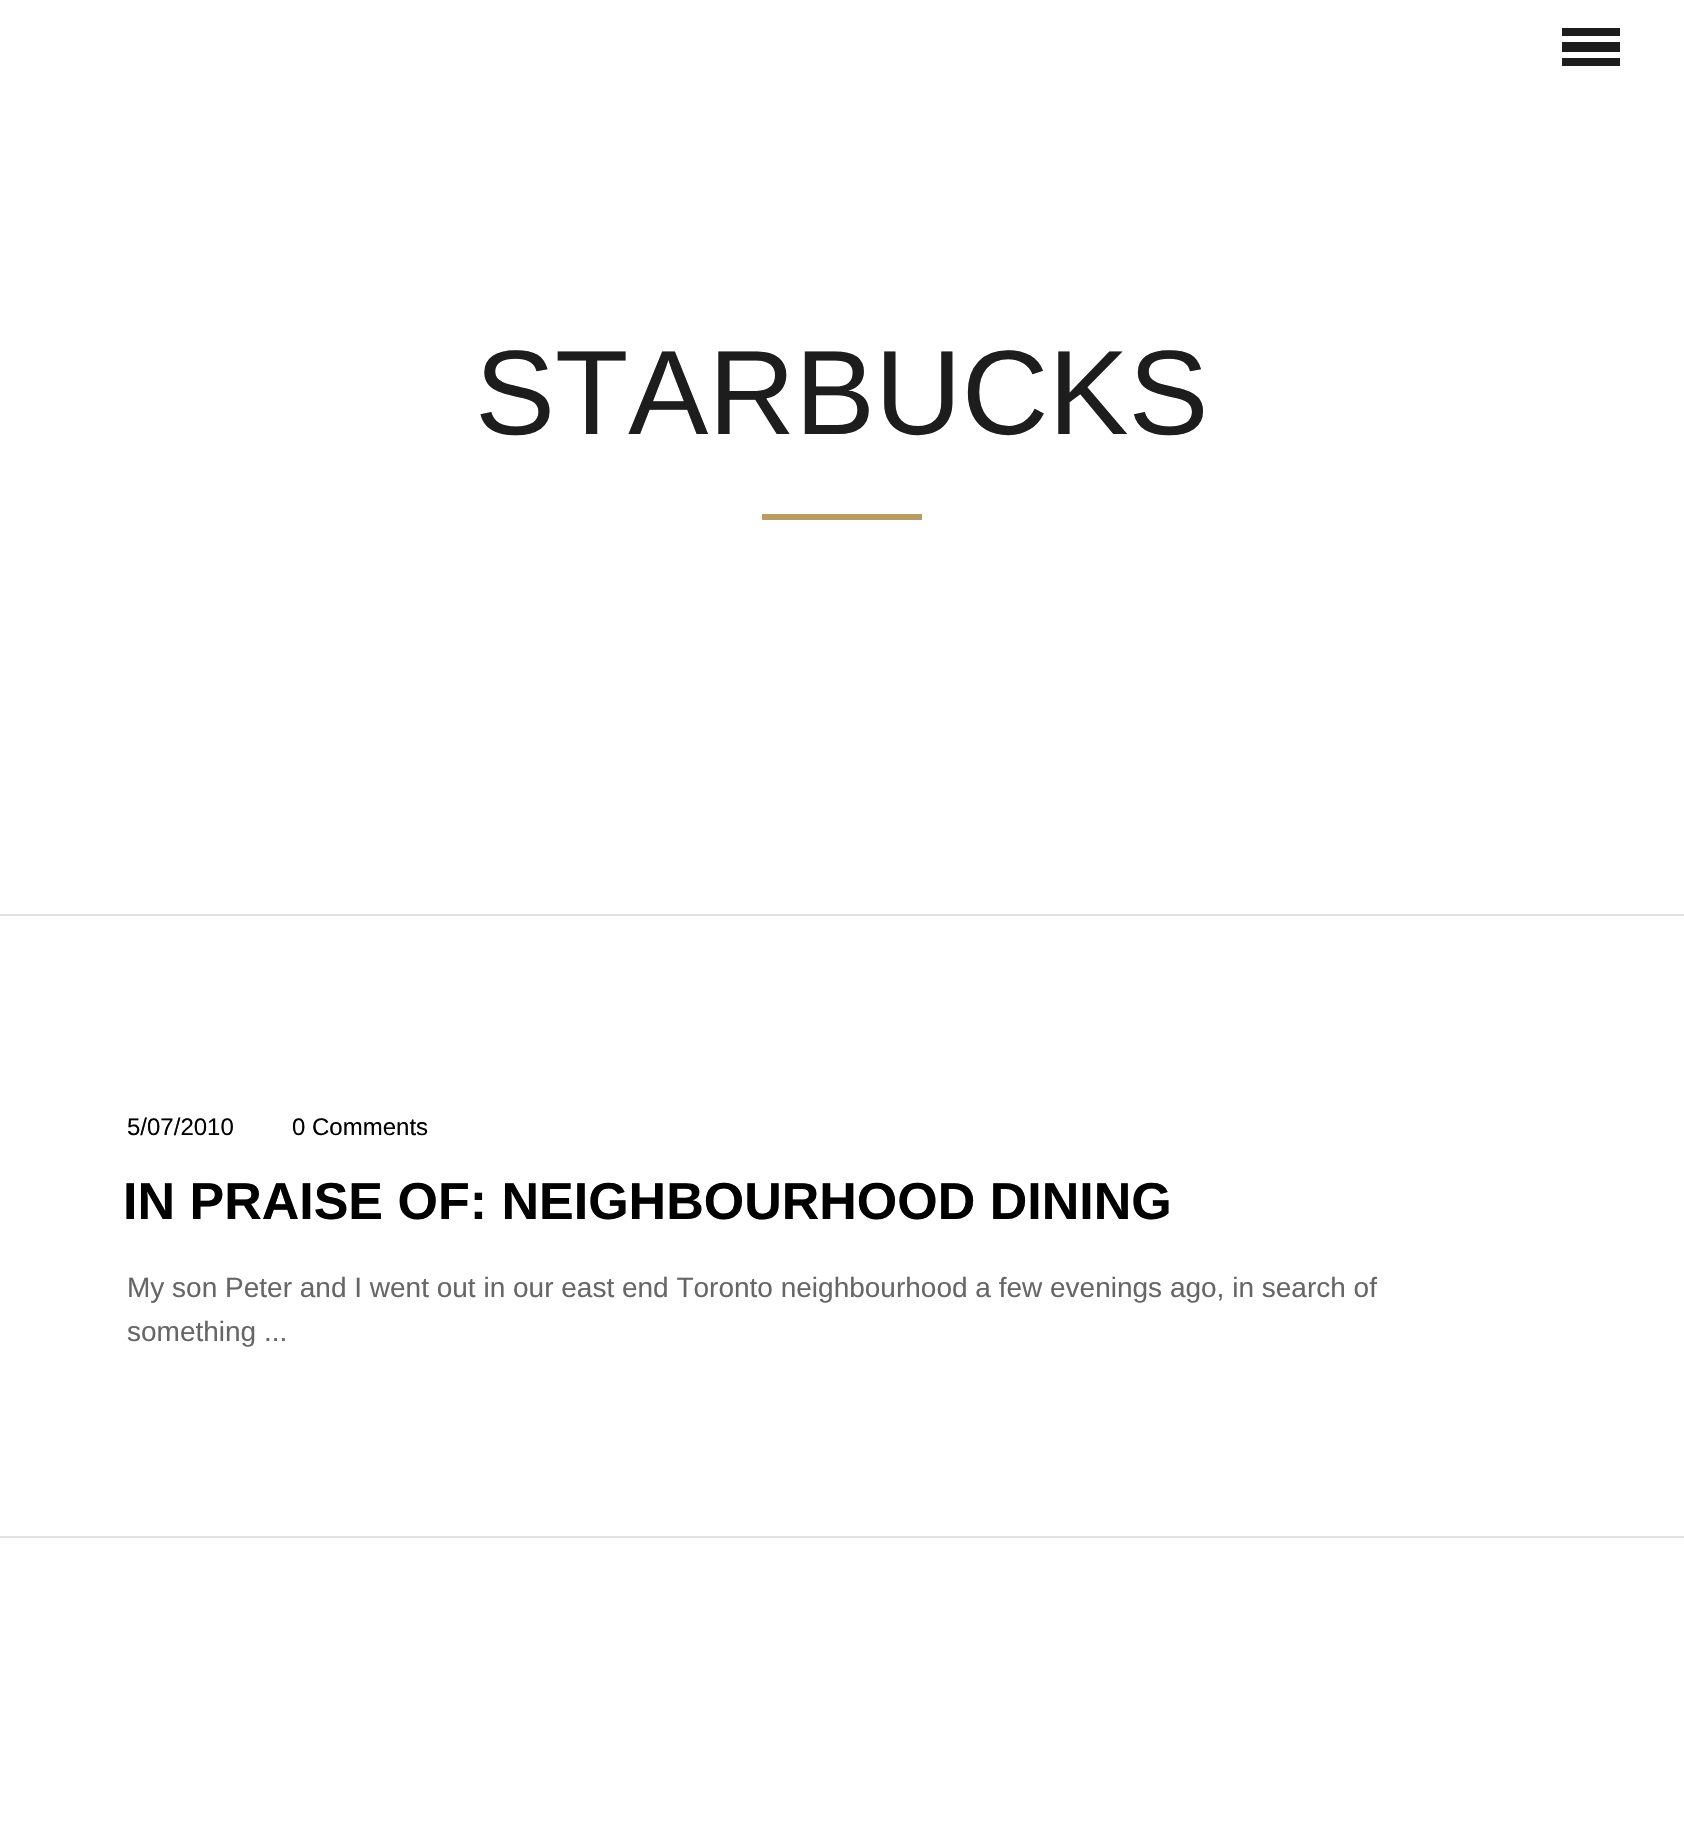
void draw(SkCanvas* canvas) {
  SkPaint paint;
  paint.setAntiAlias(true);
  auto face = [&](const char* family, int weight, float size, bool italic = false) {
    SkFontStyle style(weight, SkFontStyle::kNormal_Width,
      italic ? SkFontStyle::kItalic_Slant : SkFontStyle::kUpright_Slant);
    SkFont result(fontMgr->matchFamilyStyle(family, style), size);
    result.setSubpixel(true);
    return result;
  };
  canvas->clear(0xffffffff);
  {
    const struct { float x, y, w, h; SkColor color; } items[] = {
      {1562, 42, 58, 10, 0xff1d1d1d},
      {1562, 28, 58, 8, 0xff1d1d1d},
      {1562, 58, 58, 8, 0xff1d1d1d},
      {762, 514, 160, 6, 0xffb99d61},
      {0, 914, 1684, 2, 0xffe2e2e2},
      {0, 1536, 1684, 2, 0xffe2e2e2},
    };
    for (auto [x, y, w, h, color] : items) {
      paint.setColor(color);
      canvas->drawRect(SkRect::MakeXYWH(x, y, w, h), paint);
    }
  }
  auto f0 = face("Liberation Sans", 400, 120);
  paint.setColor(0xff1d1d1d);
  canvas->drawString("STARBUCKS", 475, 434, f0, paint);
  auto f1 = face("Liberation Sans", 400, 24);
  paint.setColor(0xff000000);
  canvas->drawString("5/07/2010", 127, 1135, f1, paint);
  canvas->drawString("0 Comments", 292, 1135, f1, paint);
  auto f2 = face("Liberation Sans", 700, 52);
  canvas->drawString("IN PRAISE OF: NEIGHBOURHOOD DINING", 123, 1219, f2, paint);
  auto f3 = face("Liberation Sans", 400, 28);
  paint.setColor(0xff666666);
  canvas->drawString("My son Peter and I went out in our east end Toronto neighbourhood a few evenings ago, in search of", 127, 1297, f3, paint);
  canvas->drawString("something ...", 127, 1341, f3, paint);
}
